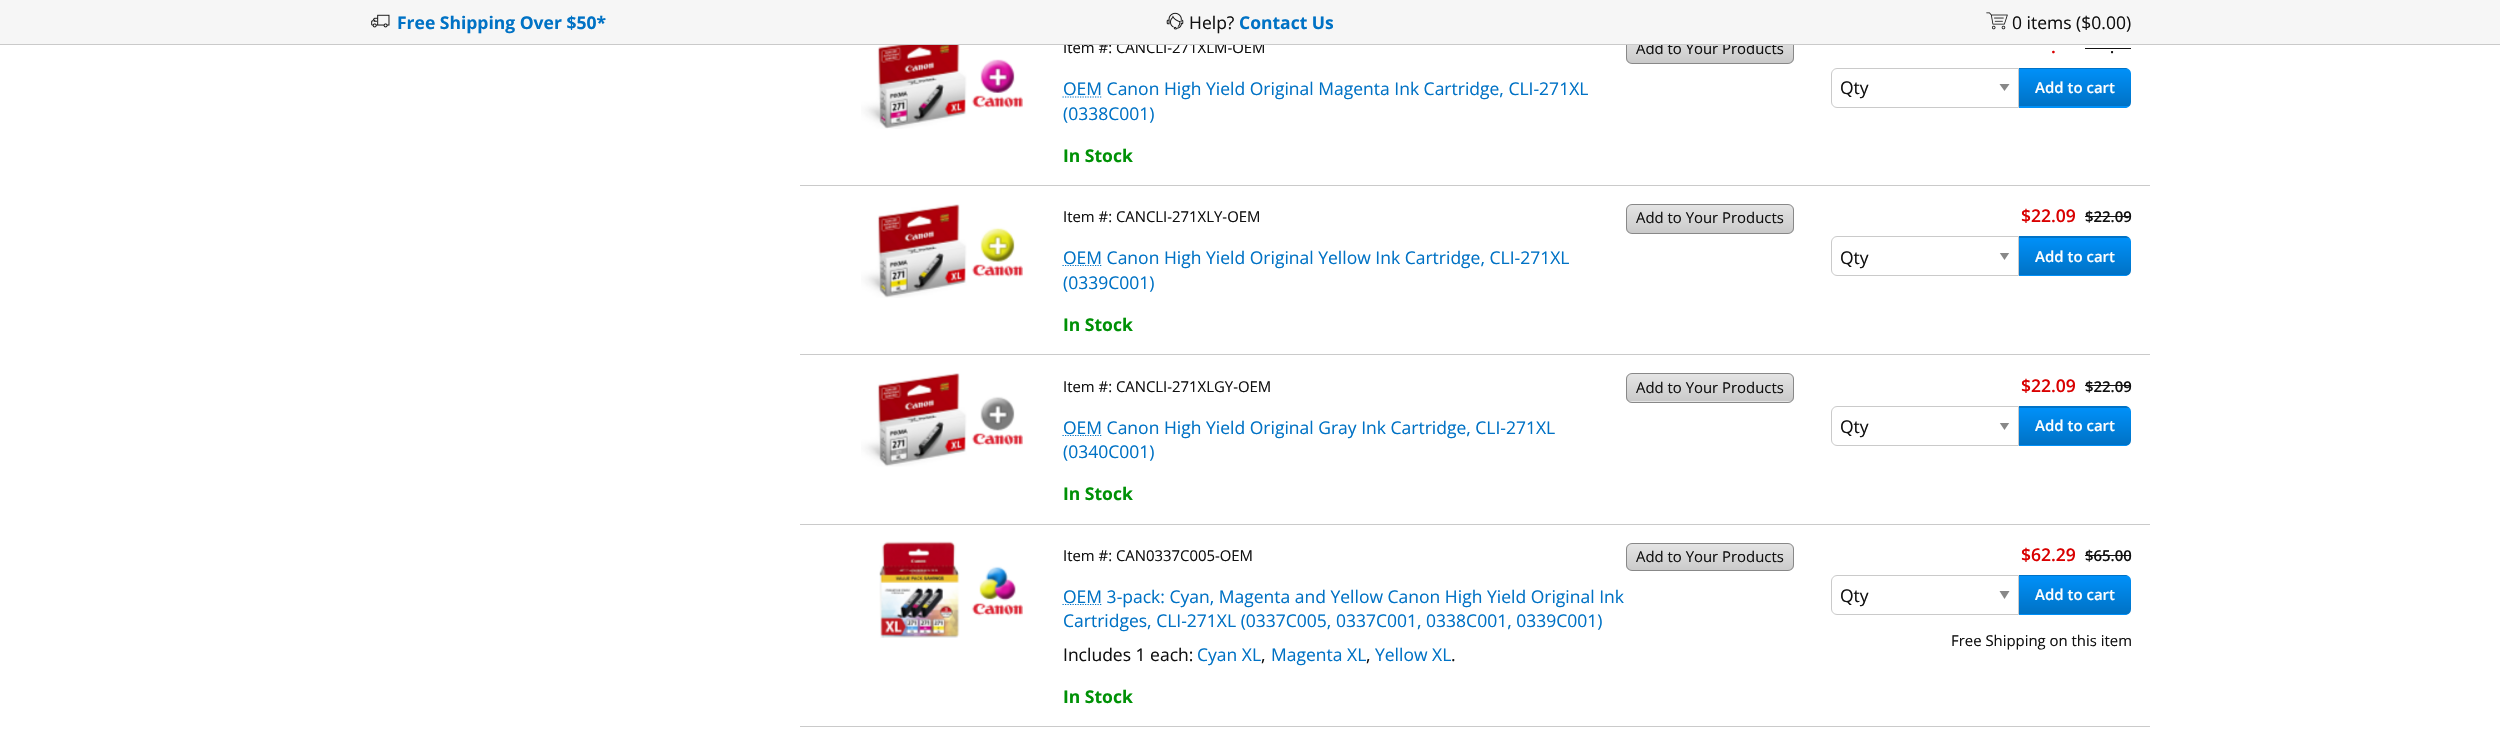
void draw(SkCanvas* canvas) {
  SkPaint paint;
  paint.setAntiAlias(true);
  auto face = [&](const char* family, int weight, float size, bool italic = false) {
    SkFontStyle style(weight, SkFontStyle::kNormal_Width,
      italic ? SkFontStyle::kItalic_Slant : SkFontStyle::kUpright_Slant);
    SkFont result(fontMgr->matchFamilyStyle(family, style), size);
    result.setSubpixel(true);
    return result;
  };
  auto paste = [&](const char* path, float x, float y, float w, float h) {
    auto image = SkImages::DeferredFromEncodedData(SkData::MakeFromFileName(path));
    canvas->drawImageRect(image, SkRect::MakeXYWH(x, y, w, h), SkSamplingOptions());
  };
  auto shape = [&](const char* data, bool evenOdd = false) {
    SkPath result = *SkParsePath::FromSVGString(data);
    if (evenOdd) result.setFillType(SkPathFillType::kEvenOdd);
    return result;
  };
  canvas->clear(0xffffffff);
  paint.setColor(0xffcacaca);
  canvas->drawRect(SkRect::MakeXYWH(800, 185, 1350, 1), paint);
  paste("img/4.png", 861, 45, 162, 84);
  canvas->save();
  canvas->clipPath(shape("M1632 35H1788C1791.5 35 1794 37.5 1794 41V58C1794 61.5 1791.5 64 1788 64H1632C1628.5 64 1626 61.5 1626 58V41C1626 37.5 1628.5 35 1632 35Z"), true);
  {
    const SkColor colors[] = {0xffe4e4e4, 0xffcacaca};
    const float stops[] = {0, 1};
    const SkPoint ends[] = {{1710, 36}, {1710, 63}};
    paint.setShader(SkGradientShader::MakeLinear(ends, colors, stops, 2, SkTileMode::kClamp));
    paint.setAlpha(255);
  }
  canvas->drawRect(SkRect::MakeXYWH(1626, 45, 168, 18), paint);
  canvas->restore();
  paint.setStroke(true);
  paint.setStrokeWidth(1);
  paint.setShader(nullptr);
  paint.setColor(0xff888888);
  canvas->drawRoundRect(SkRect::MakeXYWH(1626.5f, 35.5f, 167, 28), 5.5f, 5.5f, paint);
  paint.setStrokeWidth(1.2f);
  paint.setColor(0xff0072c5);
  paint.setPathEffect(SkDashPathEffect::Make({{1.25f, 1.25f}}, 0));
  canvas->drawPath(shape("M1062.5 97H1101.5"), paint);
  paint.setPathEffect(nullptr);
  paint.setStroke(false);
  paint.setColor(0xff111111);
  canvas->drawRect(SkRect::MakeXYWH(2085, 48, 46, 1), paint);
  paint.setColor(0xff888888);
  canvas->drawPath(shape("M1999.5 84H2009.5L2004.5 91Z"), paint);
  paint.setStroke(true);
  paint.setStrokeWidth(1);
  paint.setColor(0xffcacaca);
  canvas->drawPath(shape("M1837 68.5H2018.5V107.5H1837C1834 107.5 1831.5 105 1831.5 102V74C1831.5 71 1834 68.5 1837 68.5Z"), paint);
  canvas->save();
  canvas->clipPath(shape("M2019 68H2125C2128.5 68 2131 70.5 2131 74V102C2131 105.5 2128.5 108 2125 108H2019Z"), true);
  paint.setStroke(false);
  {
    const SkColor colors[] = {0xff0090f8, 0xff0072c5};
    const float stops[] = {0, 1};
    const SkPoint ends[] = {{2075, 31}, {2075, 69}};
    paint.setShader(SkGradientShader::MakeLinear(ends, colors, stops, 2, SkTileMode::kClamp));
    paint.setAlpha(255);
  }
  canvas->drawRect(SkRect::MakeXYWH(2019, 68, 112, 1), paint);
  {
    const SkColor colors[] = {0xff0090f8, 0xff0072c5};
    const float stops[] = {0, 1};
    const SkPoint ends[] = {{2075, 69}, {2075, 106}};
    paint.setShader(SkGradientShader::MakeLinear(ends, colors, stops, 2, SkTileMode::kClamp));
    paint.setAlpha(255);
  }
  canvas->drawRect(SkRect::MakeXYWH(2019, 69, 112, 37), paint);
  {
    const SkColor colors[] = {0xff0090f8, 0xff0072c5};
    const float stops[] = {0, 1};
    const SkPoint ends[] = {{2075, 106}, {2075, 144}};
    paint.setShader(SkGradientShader::MakeLinear(ends, colors, stops, 2, SkTileMode::kClamp));
    paint.setAlpha(255);
  }
  canvas->drawRect(SkRect::MakeXYWH(2019, 106, 112, 2), paint);
  canvas->restore();
  paint.setShader(nullptr);
  paint.setColor(0xffcacaca);
  canvas->drawRect(SkRect::MakeXYWH(800, 354, 1350, 1), paint);
  paste("img/5.png", 861, 204, 162, 94);
  canvas->save();
  canvas->clipPath(shape("M1632 204H1788C1791.5 204 1794 206.5 1794 210V228C1794 231.5 1791.5 234 1788 234H1632C1628.5 234 1626 231.5 1626 228V210C1626 206.5 1628.5 204 1632 204Z"), true);
  {
    const SkColor colors[] = {0xffe4e4e4, 0xffcacaca};
    const float stops[] = {0, 1};
    const SkPoint ends[] = {{1710, 205}, {1710, 233}};
    paint.setShader(SkGradientShader::MakeLinear(ends, colors, stops, 2, SkTileMode::kClamp));
    paint.setAlpha(255);
  }
  canvas->drawRect(SkRect::MakeXYWH(1626, 205, 168, 28), paint);
  canvas->restore();
  paint.setStroke(true);
  paint.setShader(nullptr);
  paint.setColor(0xff888888);
  canvas->drawRoundRect(SkRect::MakeXYWH(1626.5f, 204.5f, 167, 29), 5.5f, 5.5f, paint);
  paint.setStrokeWidth(1.2f);
  paint.setColor(0xff0072c5);
  paint.setPathEffect(SkDashPathEffect::Make({{1.25f, 1.25f}}, 0));
  canvas->drawPath(shape("M1062.5 265.5H1101.5"), paint);
  paint.setPathEffect(nullptr);
  paint.setStroke(false);
  paint.setColor(0xff111111);
  canvas->drawRect(SkRect::MakeXYWH(2085, 216, 46, 1), paint);
  canvas->save();
  canvas->clipRect(SkRect::MakeXYWH(1999, 253, 11, 7));
  paint.setColor(0xff888888);
  canvas->drawPath(shape("M1999.5 252.5H2009.5L2004.5 260Z"), paint);
  canvas->restore();
  paint.setStroke(true);
  paint.setStrokeWidth(1);
  paint.setColor(0xffcacaca);
  canvas->drawPath(shape("M1837 236.5H2018.5V275.5H1837C1834 275.5 1831.5 273 1831.5 270V242C1831.5 239 1834 236.5 1837 236.5Z"), paint);
  canvas->save();
  canvas->clipPath(shape("M2019 236H2125C2128.5 236 2131 238.5 2131 242V270C2131 273.5 2128.5 276 2125 276H2019Z"), true);
  paint.setStroke(false);
  {
    const SkColor colors[] = {0xff0090f8, 0xff0072c5};
    const float stops[] = {0, 1};
    const SkPoint ends[] = {{2075, 200}, {2075, 238}};
    paint.setShader(SkGradientShader::MakeLinear(ends, colors, stops, 2, SkTileMode::kClamp));
    paint.setAlpha(255);
  }
  canvas->drawRect(SkRect::MakeXYWH(2019, 236, 112, 2), paint);
  {
    const SkColor colors[] = {0xff0090f8, 0xff0072c5};
    const float stops[] = {0, 1};
    const SkPoint ends[] = {{2075, 238}, {2075, 275}};
    paint.setShader(SkGradientShader::MakeLinear(ends, colors, stops, 2, SkTileMode::kClamp));
    paint.setAlpha(255);
  }
  canvas->drawRect(SkRect::MakeXYWH(2019, 238, 112, 37), paint);
  {
    const SkColor colors[] = {0xff0090f8, 0xff0072c5};
    const float stops[] = {0, 1};
    const SkPoint ends[] = {{2075, 275}, {2075, 313}};
    paint.setShader(SkGradientShader::MakeLinear(ends, colors, stops, 2, SkTileMode::kClamp));
    paint.setAlpha(255);
  }
  canvas->drawRect(SkRect::MakeXYWH(2019, 275, 112, 1), paint);
  canvas->restore();
  paint.setShader(nullptr);
  paint.setColor(0xffcacaca);
  canvas->drawRect(SkRect::MakeXYWH(800, 524, 1350, 1), paint);
  paste("img/6.png", 861, 373, 162, 94);
  canvas->save();
  canvas->clipPath(shape("M1632 373H1788C1791.5 373 1794 375.5 1794 379V397C1794 400.5 1791.5 403 1788 403H1632C1628.5 403 1626 400.5 1626 397V379C1626 375.5 1628.5 373 1632 373Z"), true);
  {
    const SkColor colors[] = {0xffe4e4e4, 0xffcacaca};
    const float stops[] = {0, 1};
    const SkPoint ends[] = {{1710, 374}, {1710, 401}};
    paint.setShader(SkGradientShader::MakeLinear(ends, colors, stops, 2, SkTileMode::kClamp));
    paint.setAlpha(255);
  }
  canvas->drawRect(SkRect::MakeXYWH(1626, 374, 168, 27), paint);
  {
    const SkColor colors[] = {0xffe4e4e4, 0xffcacaca};
    const float stops[] = {0, 1};
    const SkPoint ends[] = {{1710, 401}, {1710, 429}};
    paint.setShader(SkGradientShader::MakeLinear(ends, colors, stops, 2, SkTileMode::kClamp));
    paint.setAlpha(255);
  }
  canvas->drawRect(SkRect::MakeXYWH(1626, 401, 168, 2), paint);
  canvas->restore();
  paint.setStroke(true);
  paint.setShader(nullptr);
  paint.setColor(0xff888888);
  canvas->drawRoundRect(SkRect::MakeXYWH(1626.5f, 373.5f, 167, 29), 5.5f, 5.5f, paint);
  paint.setStrokeWidth(1.2f);
  paint.setColor(0xff0072c5);
  paint.setPathEffect(SkDashPathEffect::Make({{1.25f, 1.25f}}, 0));
  canvas->drawPath(shape("M1062.5 435.5H1101.5"), paint);
  paint.setPathEffect(nullptr);
  paint.setStroke(false);
  paint.setColor(0xff111111);
  canvas->drawRect(SkRect::MakeXYWH(2085, 385, 46, 1), paint);
  canvas->save();
  canvas->clipRect(SkRect::MakeXYWH(1999, 423, 11, 7));
  paint.setColor(0xff888888);
  canvas->drawPath(shape("M1999.5 422.5H2009.5L2004.5 430Z"), paint);
  canvas->restore();
  paint.setStroke(true);
  paint.setStrokeWidth(1);
  paint.setColor(0xffcacaca);
  canvas->drawPath(shape("M1837 406.5H2018.5V445.5H1837C1834 445.5 1831.5 443 1831.5 440V412C1831.5 409 1834 406.5 1837 406.5Z"), paint);
  canvas->save();
  canvas->clipPath(shape("M2019 406H2125C2128.5 406 2131 408.5 2131 412V440C2131 443.5 2128.5 446 2125 446H2019Z"), true);
  paint.setStroke(false);
  {
    const SkColor colors[] = {0xff0090f8, 0xff0072c5};
    const float stops[] = {0, 1};
    const SkPoint ends[] = {{2075, 370}, {2075, 408}};
    paint.setShader(SkGradientShader::MakeLinear(ends, colors, stops, 2, SkTileMode::kClamp));
    paint.setAlpha(255);
  }
  canvas->drawRect(SkRect::MakeXYWH(2019, 406, 112, 2), paint);
  {
    const SkColor colors[] = {0xff0090f8, 0xff0072c5};
    const float stops[] = {0, 1};
    const SkPoint ends[] = {{2075, 408}, {2075, 445}};
    paint.setShader(SkGradientShader::MakeLinear(ends, colors, stops, 2, SkTileMode::kClamp));
    paint.setAlpha(255);
  }
  canvas->drawRect(SkRect::MakeXYWH(2019, 408, 112, 37), paint);
  {
    const SkColor colors[] = {0xff0090f8, 0xff0072c5};
    const float stops[] = {0, 1};
    const SkPoint ends[] = {{2075, 445}, {2075, 483}};
    paint.setShader(SkGradientShader::MakeLinear(ends, colors, stops, 2, SkTileMode::kClamp));
    paint.setAlpha(255);
  }
  canvas->drawRect(SkRect::MakeXYWH(2019, 445, 112, 1), paint);
  canvas->restore();
  paint.setShader(nullptr);
  paint.setColor(0xffcacaca);
  canvas->drawRect(SkRect::MakeXYWH(800, 726, 1350, 1), paint);
  paste("img/7.png", 879, 541, 144, 97);
  canvas->save();
  canvas->clipPath(shape("M1632 543H1788C1791.5 543 1794 545.5 1794 549V565C1794 568.5 1791.5 571 1788 571H1632C1628.5 571 1626 568.5 1626 565V549C1626 545.5 1628.5 543 1632 543Z"), true);
  {
    const SkColor colors[] = {0xffe4e4e4, 0xffcacaca};
    const float stops[] = {0, 1};
    const SkPoint ends[] = {{1710, 544}, {1710, 570}};
    paint.setShader(SkGradientShader::MakeLinear(ends, colors, stops, 2, SkTileMode::kClamp));
    paint.setAlpha(255);
  }
  canvas->drawRect(SkRect::MakeXYWH(1626, 544, 168, 26), paint);
  canvas->restore();
  paint.setStroke(true);
  paint.setShader(nullptr);
  paint.setColor(0xff888888);
  canvas->drawRoundRect(SkRect::MakeXYWH(1626.5f, 543.5f, 167, 27), 5.5f, 5.5f, paint);
  paint.setStrokeWidth(1.2f);
  paint.setColor(0xff0072c5);
  paint.setPathEffect(SkDashPathEffect::Make({{1.25f, 1.25f}}, 0));
  canvas->drawPath(shape("M1062.5 604.5H1101.5"), paint);
  paint.setPathEffect(nullptr);
  paint.setStroke(false);
  paint.setColor(0xff111111);
  canvas->drawRect(SkRect::MakeXYWH(2085, 555, 46, 1), paint);
  paint.setColor(0xff888888);
  canvas->drawPath(shape("M1999.5 591H2009.5L2004.5 599Z"), paint);
  paint.setStroke(true);
  paint.setStrokeWidth(1);
  paint.setColor(0xffcacaca);
  canvas->drawPath(shape("M1837 575.5H2018.5V614.5H1837C1834 614.5 1831.5 612 1831.5 609V581C1831.5 578 1834 575.5 1837 575.5Z"), paint);
  canvas->save();
  canvas->clipPath(shape("M2019 575H2125C2128.5 575 2131 577.5 2131 581V609C2131 612.5 2128.5 615 2125 615H2019Z"), true);
  paint.setStroke(false);
  {
    const SkColor colors[] = {0xff0090f8, 0xff0072c5};
    const float stops[] = {0, 1};
    const SkPoint ends[] = {{2075, 539}, {2075, 576}};
    paint.setShader(SkGradientShader::MakeLinear(ends, colors, stops, 2, SkTileMode::kClamp));
    paint.setAlpha(255);
  }
  canvas->drawRect(SkRect::MakeXYWH(2019, 575, 112, 1), paint);
  {
    const SkColor colors[] = {0xff0090f8, 0xff0072c5};
    const float stops[] = {0, 1};
    const SkPoint ends[] = {{2075, 576}, {2075, 614}};
    paint.setShader(SkGradientShader::MakeLinear(ends, colors, stops, 2, SkTileMode::kClamp));
    paint.setAlpha(255);
  }
  canvas->drawRect(SkRect::MakeXYWH(2019, 576, 112, 38), paint);
  {
    const SkColor colors[] = {0xff0090f8, 0xff0072c5};
    const float stops[] = {0, 1};
    const SkPoint ends[] = {{2075, 614}, {2075, 651}};
    paint.setShader(SkGradientShader::MakeLinear(ends, colors, stops, 2, SkTileMode::kClamp));
    paint.setAlpha(255);
  }
  canvas->drawRect(SkRect::MakeXYWH(2019, 614, 112, 1), paint);
  canvas->restore();
  auto f0 = face("Open Sans", 400, 14.9f);
  paint.setShader(nullptr);
  paint.setColor(0xff111111);
  canvas->drawString("Item #: CANCLI-271XLM-OEM", 1063, 53, f0, paint);
  canvas->drawString("Add to Your Products", 1636, 54, f0, paint);
  paint.setColor(0xfff6f6f6);
  canvas->drawRect(SkRect::MakeXYWH(0, 0, 2500, 44), paint);
  auto f1 = face("Open Sans", 400, 17.5f);
  paint.setColor(0xff111111);
  canvas->drawString("0 items ($0.00)", 2012, 29, f1, paint);
  paste("img/3.png", 1986, 12, 22, 18);
  auto f2 = face("Open Sans", 700, 17.5f);
  paint.setColor(0xff0072c5);
  canvas->drawString("Contact Us", 1239, 29, f2, paint);
  paint.setColor(0xff111111);
  canvas->drawString("Help?", 1189, 29, f1, paint);
  paste("img/2.png", 1166, 12, 18, 18);
  paint.setColor(0xff0072c5);
  canvas->drawString("Free Shipping Over $50*", 397, 29, f2, paint);
  paste("img/1.png", 371, 14, 19, 14);
  paint.setColor(0xffcacaca);
  canvas->drawRect(SkRect::MakeXYWH(0, 44, 2500, 1), paint);
  paint.setColor(0xff0072c5);
  canvas->drawString("OEM Canon High Yield Original Magenta Ink Cartridge, CLI-271XL", 1063, 95, f1, paint);
  canvas->drawString("(0338C001)", 1063, 120, f1, paint);
  paint.setColor(0xff009106);
  canvas->drawString("In Stock", 1063, 162, f2, paint);
  auto f3 = face("Open Sans", 600, 17.5f);
  paint.setColor(0xffd90000);
  canvas->drawString(".", 2051, 53, f3, paint);
  auto f4 = face("Open Sans", 600, 14.9f);
  paint.setColor(0xff111111);
  canvas->drawString(".", 2110, 53, f4, paint);
  canvas->drawString("Qty", 1840, 94, f1, paint);
  auto f5 = face("Open Sans", 600, 15);
  paint.setColor(0xfffefefe);
  canvas->drawString("Add to cart", 2035, 93, f5, paint);
  paint.setColor(0xff111111);
  canvas->drawString("Item #: CANCLI-271XLY-OEM", 1063, 222, f0, paint);
  canvas->drawString("Add to Your Products", 1636, 223, f0, paint);
  paint.setColor(0xff0072c5);
  canvas->drawString("OEM Canon High Yield Original Yellow Ink Cartridge, CLI-271XL", 1063, 264, f1, paint);
  canvas->drawString("(0339C001)", 1063, 289, f1, paint);
  paint.setColor(0xff009106);
  canvas->drawString("In Stock", 1063, 331, f2, paint);
  paint.setColor(0xffd90000);
  canvas->drawString("$22.09", 2021, 222, f3, paint);
  paint.setColor(0xff111111);
  canvas->drawString("$22.09", 2085, 222, f4, paint);
  canvas->drawString("Qty", 1840, 264, f1, paint);
  paint.setColor(0xfffefefe);
  canvas->drawString("Add to cart", 2035, 262, f5, paint);
  paint.setColor(0xff111111);
  canvas->drawString("Item #: CANCLI-271XLGY-OEM", 1063, 392, f0, paint);
  canvas->drawString("Add to Your Products", 1636, 393, f0, paint);
  paint.setColor(0xff0072c5);
  canvas->drawString("OEM Canon High Yield Original Gray Ink Cartridge, CLI-271XL", 1063, 434, f1, paint);
  canvas->drawString("(0340C001)", 1063, 458, f1, paint);
  paint.setColor(0xff009106);
  canvas->drawString("In Stock", 1063, 500, f2, paint);
  paint.setColor(0xffd90000);
  canvas->drawString("$22.09", 2021, 392, f3, paint);
  paint.setColor(0xff111111);
  canvas->drawString("$22.09", 2085, 392, f4, paint);
  canvas->drawString("Qty", 1840, 433, f1, paint);
  paint.setColor(0xfffefefe);
  canvas->drawString("Add to cart", 2035, 431, f5, paint);
  paint.setColor(0xff111111);
  canvas->drawString("Item #: CAN0337C005-OEM", 1063, 561, f0, paint);
  canvas->drawString("Add to Your Products", 1636, 562, f0, paint);
  paint.setColor(0xff0072c5);
  canvas->drawString("OEM 3-pack: Cyan, Magenta and Yellow Canon High Yield Original Ink", 1063, 603, f1, paint);
  canvas->drawString("Cartridges, CLI-271XL (0337C005, 0337C001, 0338C001, 0339C001)", 1063, 627, f1, paint);
  paint.setColor(0xff111111);
  canvas->drawString("Includes 1 each:", 1063, 661, f1, paint);
  paint.setColor(0xff0072c5);
  canvas->drawString("Cyan XL", 1197, 661, f1, paint);
  paint.setColor(0xff111111);
  canvas->drawString(",", 1261, 661, f1, paint);
  paint.setColor(0xff0072c5);
  canvas->drawString("Magenta XL", 1271, 661, f1, paint);
  paint.setColor(0xff111111);
  canvas->drawString(",", 1366, 661, f1, paint);
  paint.setColor(0xff0072c5);
  canvas->drawString("Yellow XL", 1375, 661, f1, paint);
  paint.setColor(0xff111111);
  canvas->drawString(".", 1451, 661, f1, paint);
  paint.setColor(0xff009106);
  canvas->drawString("In Stock", 1063, 703, f2, paint);
  paint.setColor(0xffd90000);
  canvas->drawString("$62.29", 2021, 561, f3, paint);
  paint.setColor(0xff111111);
  canvas->drawString("$65.00", 2085, 561, f4, paint);
  canvas->drawString("Qty", 1840, 602, f1, paint);
  paint.setColor(0xfffefefe);
  canvas->drawString("Add to cart", 2035, 600, f5, paint);
  paint.setColor(0xff111111);
  canvas->drawString("Free Shipping on this item", 1951, 646, f0, paint);
}
